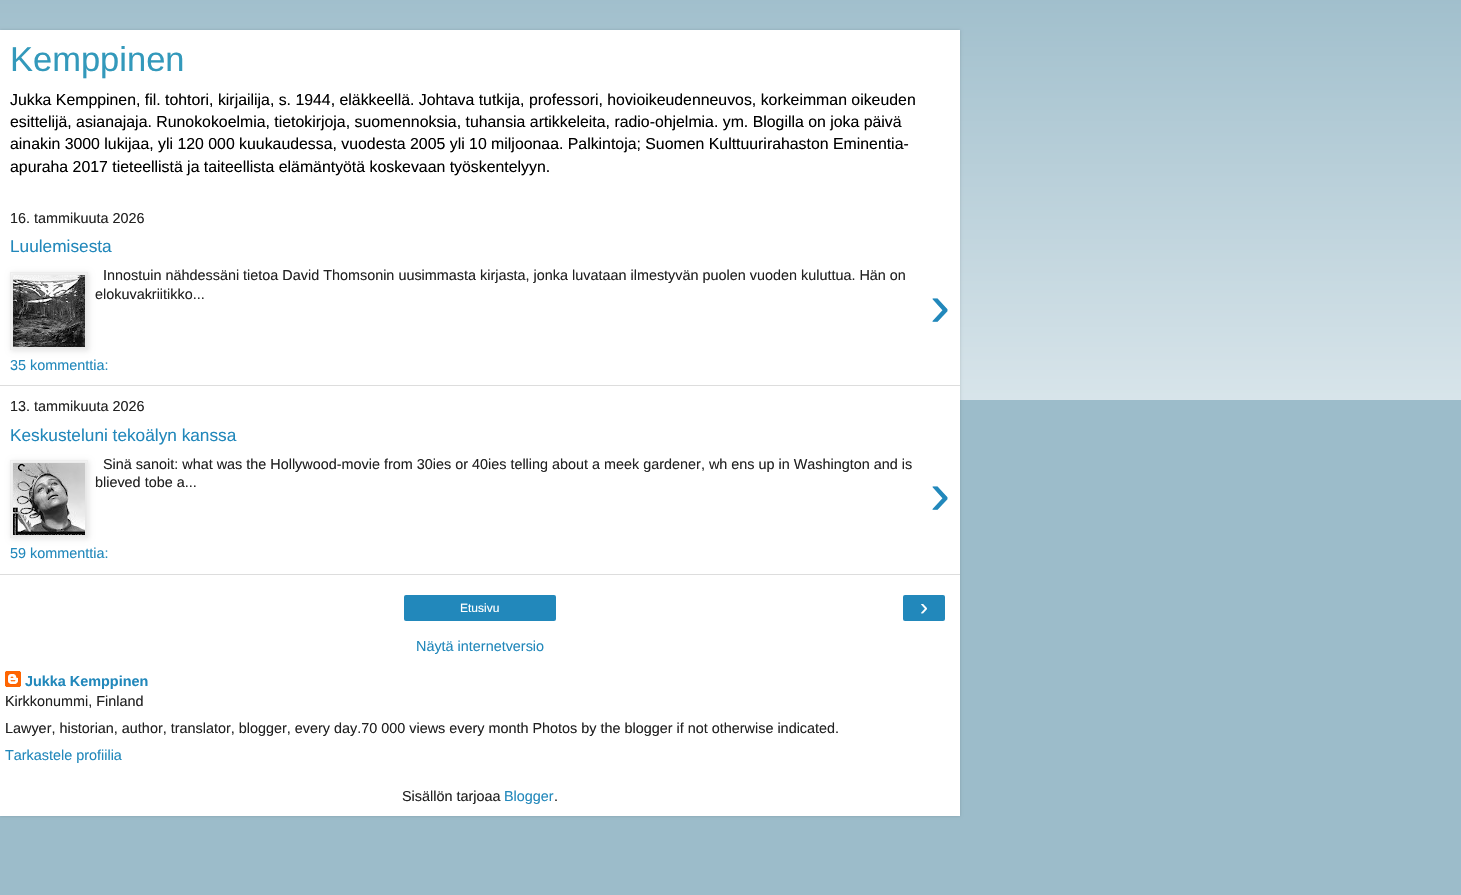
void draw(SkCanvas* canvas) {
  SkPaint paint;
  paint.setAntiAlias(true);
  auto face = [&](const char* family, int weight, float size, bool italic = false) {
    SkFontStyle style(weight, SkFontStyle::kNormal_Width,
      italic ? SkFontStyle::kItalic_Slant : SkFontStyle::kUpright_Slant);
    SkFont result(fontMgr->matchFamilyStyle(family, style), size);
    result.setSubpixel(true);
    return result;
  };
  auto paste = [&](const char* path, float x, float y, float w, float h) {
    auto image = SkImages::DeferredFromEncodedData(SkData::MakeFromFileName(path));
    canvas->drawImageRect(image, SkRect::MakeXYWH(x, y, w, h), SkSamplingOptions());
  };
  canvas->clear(0xff9cbcca);
  paste("img/1.png", 0, 0, 1461, 400);
  paint.setColor(0x26000000);
  paint.setMaskFilter(SkMaskFilter::MakeBlur(kNormal_SkBlurStyle, 1.5f));
  canvas->drawRect(SkRect::MakeXYWH(0, 30, 960, 786), paint);
  paint.setMaskFilter(nullptr);
  paint.setColor(0xffffffff);
  canvas->drawRect(SkRect::MakeXYWH(0, 30, 960, 786), paint);
  paint.setColor(0xffdddddd);
  canvas->drawRect(SkRect::MakeXYWH(0, 385, 960, 1), paint);
  paint.setColor(0x1a000000);
  paint.setMaskFilter(SkMaskFilter::MakeBlur(kNormal_SkBlurStyle, 2.5f));
  canvas->drawRect(SkRect::MakeXYWH(11, 273, 78, 78), paint);
  paint.setMaskFilter(nullptr);
  paint.setStroke(true);
  paint.setStrokeWidth(1);
  paint.setColor(0xffeeeeee);
  canvas->drawRect(SkRect::MakeXYWH(10.5f, 272.5f, 77, 77), paint);
  paste("img/2.png", 13, 275, 72, 72);
  paint.setStroke(false);
  paint.setColor(0xffdddddd);
  canvas->drawRect(SkRect::MakeXYWH(0, 574, 960, 1), paint);
  paint.setColor(0x1a000000);
  paint.setMaskFilter(SkMaskFilter::MakeBlur(kNormal_SkBlurStyle, 2.5f));
  canvas->drawRect(SkRect::MakeXYWH(11, 461, 78, 78), paint);
  paint.setMaskFilter(nullptr);
  paint.setStroke(true);
  paint.setColor(0xffeeeeee);
  canvas->drawRect(SkRect::MakeXYWH(10.5f, 460.5f, 77, 77), paint);
  paste("img/3.png", 13, 463, 72, 72);
  paint.setStroke(false);
  paint.setColor(0xff2288bb);
  canvas->drawRoundRect(SkRect::MakeXYWH(404, 595, 152, 26), 2, 2, paint);
  canvas->drawRoundRect(SkRect::MakeXYWH(903, 595, 42, 26), 2, 2, paint);
  paste("img/4.png", 5, 671, 16, 16);
  auto f0 = face("Liberation Sans", 400, 34.5f);
  paint.setColor(0xff3399bb);
  canvas->drawString("Kemppinen", 10, 71, f0, paint);
  auto f1 = face("Liberation Sans", 400, 15.85f);
  paint.setColor(0xff000000);
  {
    const struct { const char* s; float x, y; } items[] = {
      {"Jukka Kemppinen, fil. tohtori, kirjailija, s. 1944, eläkkeellä. Johtava tutkija, professori, hovioikeudenneuvos, korkeimman oikeuden", 10, 105},
      {"esittelijä, asianajaja. Runokokoelmia, tietokirjoja, suomennoksia, tuhansia artikkeleita, radio-ohjelmia. ym. Blogilla on joka päivä", 10, 127},
      {"ainakin 3000 lukijaa, yli 120 000 kuukaudessa, vuodesta 2005 yli 10 miljoonaa. Palkintoja; Suomen Kulttuurirahaston Eminentia-", 10, 149},
      {"apuraha 2017 tieteellistä ja taiteellista elämäntyötä koskevaan työskentelyyn.", 10, 172},
    };
    for (auto [s, x, y] : items) {
      canvas->drawString(s, x, y, f1, paint);
    }
  }
  auto f2 = face("Liberation Sans", 400, 14.4f);
  paint.setColor(0xff222222);
  canvas->drawString("16. tammikuuta 2026", 10, 223, f2, paint);
  auto f3 = face("Liberation Sans", 400, 17.25f);
  paint.setColor(0xff2288bb);
  canvas->drawString("Luulemisesta", 10, 252, f3, paint);
  paint.setColor(0xff222222);
  canvas->drawString("Innostuin nähdessäni tietoa David Thomsonin uusimmasta kirjasta, jonka luvataan ilmestyvän puolen vuoden kuluttua. Hän on", 103, 280, f2, paint);
  canvas->drawString("elokuvakriitikko...", 95, 299, f2, paint);
  auto f4 = face("Liberation Sans", 400, 60);
  paint.setColor(0xff2288bb);
  canvas->drawString("›", 930, 326, f4, paint);
  canvas->drawString("35 kommenttia:", 10, 370, f2, paint);
  paint.setColor(0xff222222);
  canvas->drawString("13. tammikuuta 2026", 10, 411, f2, paint);
  paint.setColor(0xff2288bb);
  canvas->drawString("Keskusteluni tekoälyn kanssa", 10, 441, f3, paint);
  paint.setColor(0xff222222);
  canvas->drawString("Sinä sanoit: what was the Hollywood-movie from 30ies or 40ies telling about a meek gardener, wh ens up in Washington and is", 103, 469, f2, paint);
  canvas->drawString("blieved tobe a...", 95, 487, f2, paint);
  paint.setColor(0xff2288bb);
  canvas->drawString("›", 930, 514, f4, paint);
  canvas->drawString("59 kommenttia:", 10, 558, f2, paint);
  auto f5 = face("Liberation Sans", 400, 12);
  paint.setColor(0xffffffff);
  canvas->drawString("Etusivu", 460, 612, f5, paint);
  auto f6 = face("Liberation Sans", 400, 24);
  canvas->drawString("›", 920, 615, f6, paint);
  paint.setColor(0xff2288bb);
  canvas->drawString("Näytä internetversio", 416, 651, f2, paint);
  auto f7 = face("Liberation Sans", 700, 14.4f);
  canvas->drawString("Jukka Kemppinen", 25, 686, f7, paint);
  paint.setColor(0xff222222);
  canvas->drawString("Kirkkonummi, Finland", 5, 706, f2, paint);
  canvas->drawString("Lawyer, historian, author, translator, blogger, every day.70 000 views every month Photos by the blogger if not otherwise indicated.", 5, 733, f2, paint);
  paint.setColor(0xff2288bb);
  canvas->drawString("Tarkastele profiilia", 5, 760, f2, paint);
  paint.setColor(0xff222222);
  canvas->drawString("Sisällön tarjoaa", 402, 801, f2, paint);
  paint.setColor(0xff2288bb);
  canvas->drawString("Blogger", 504, 801, f2, paint);
  paint.setColor(0xff222222);
  canvas->drawString(".", 554, 801, f2, paint);
}
